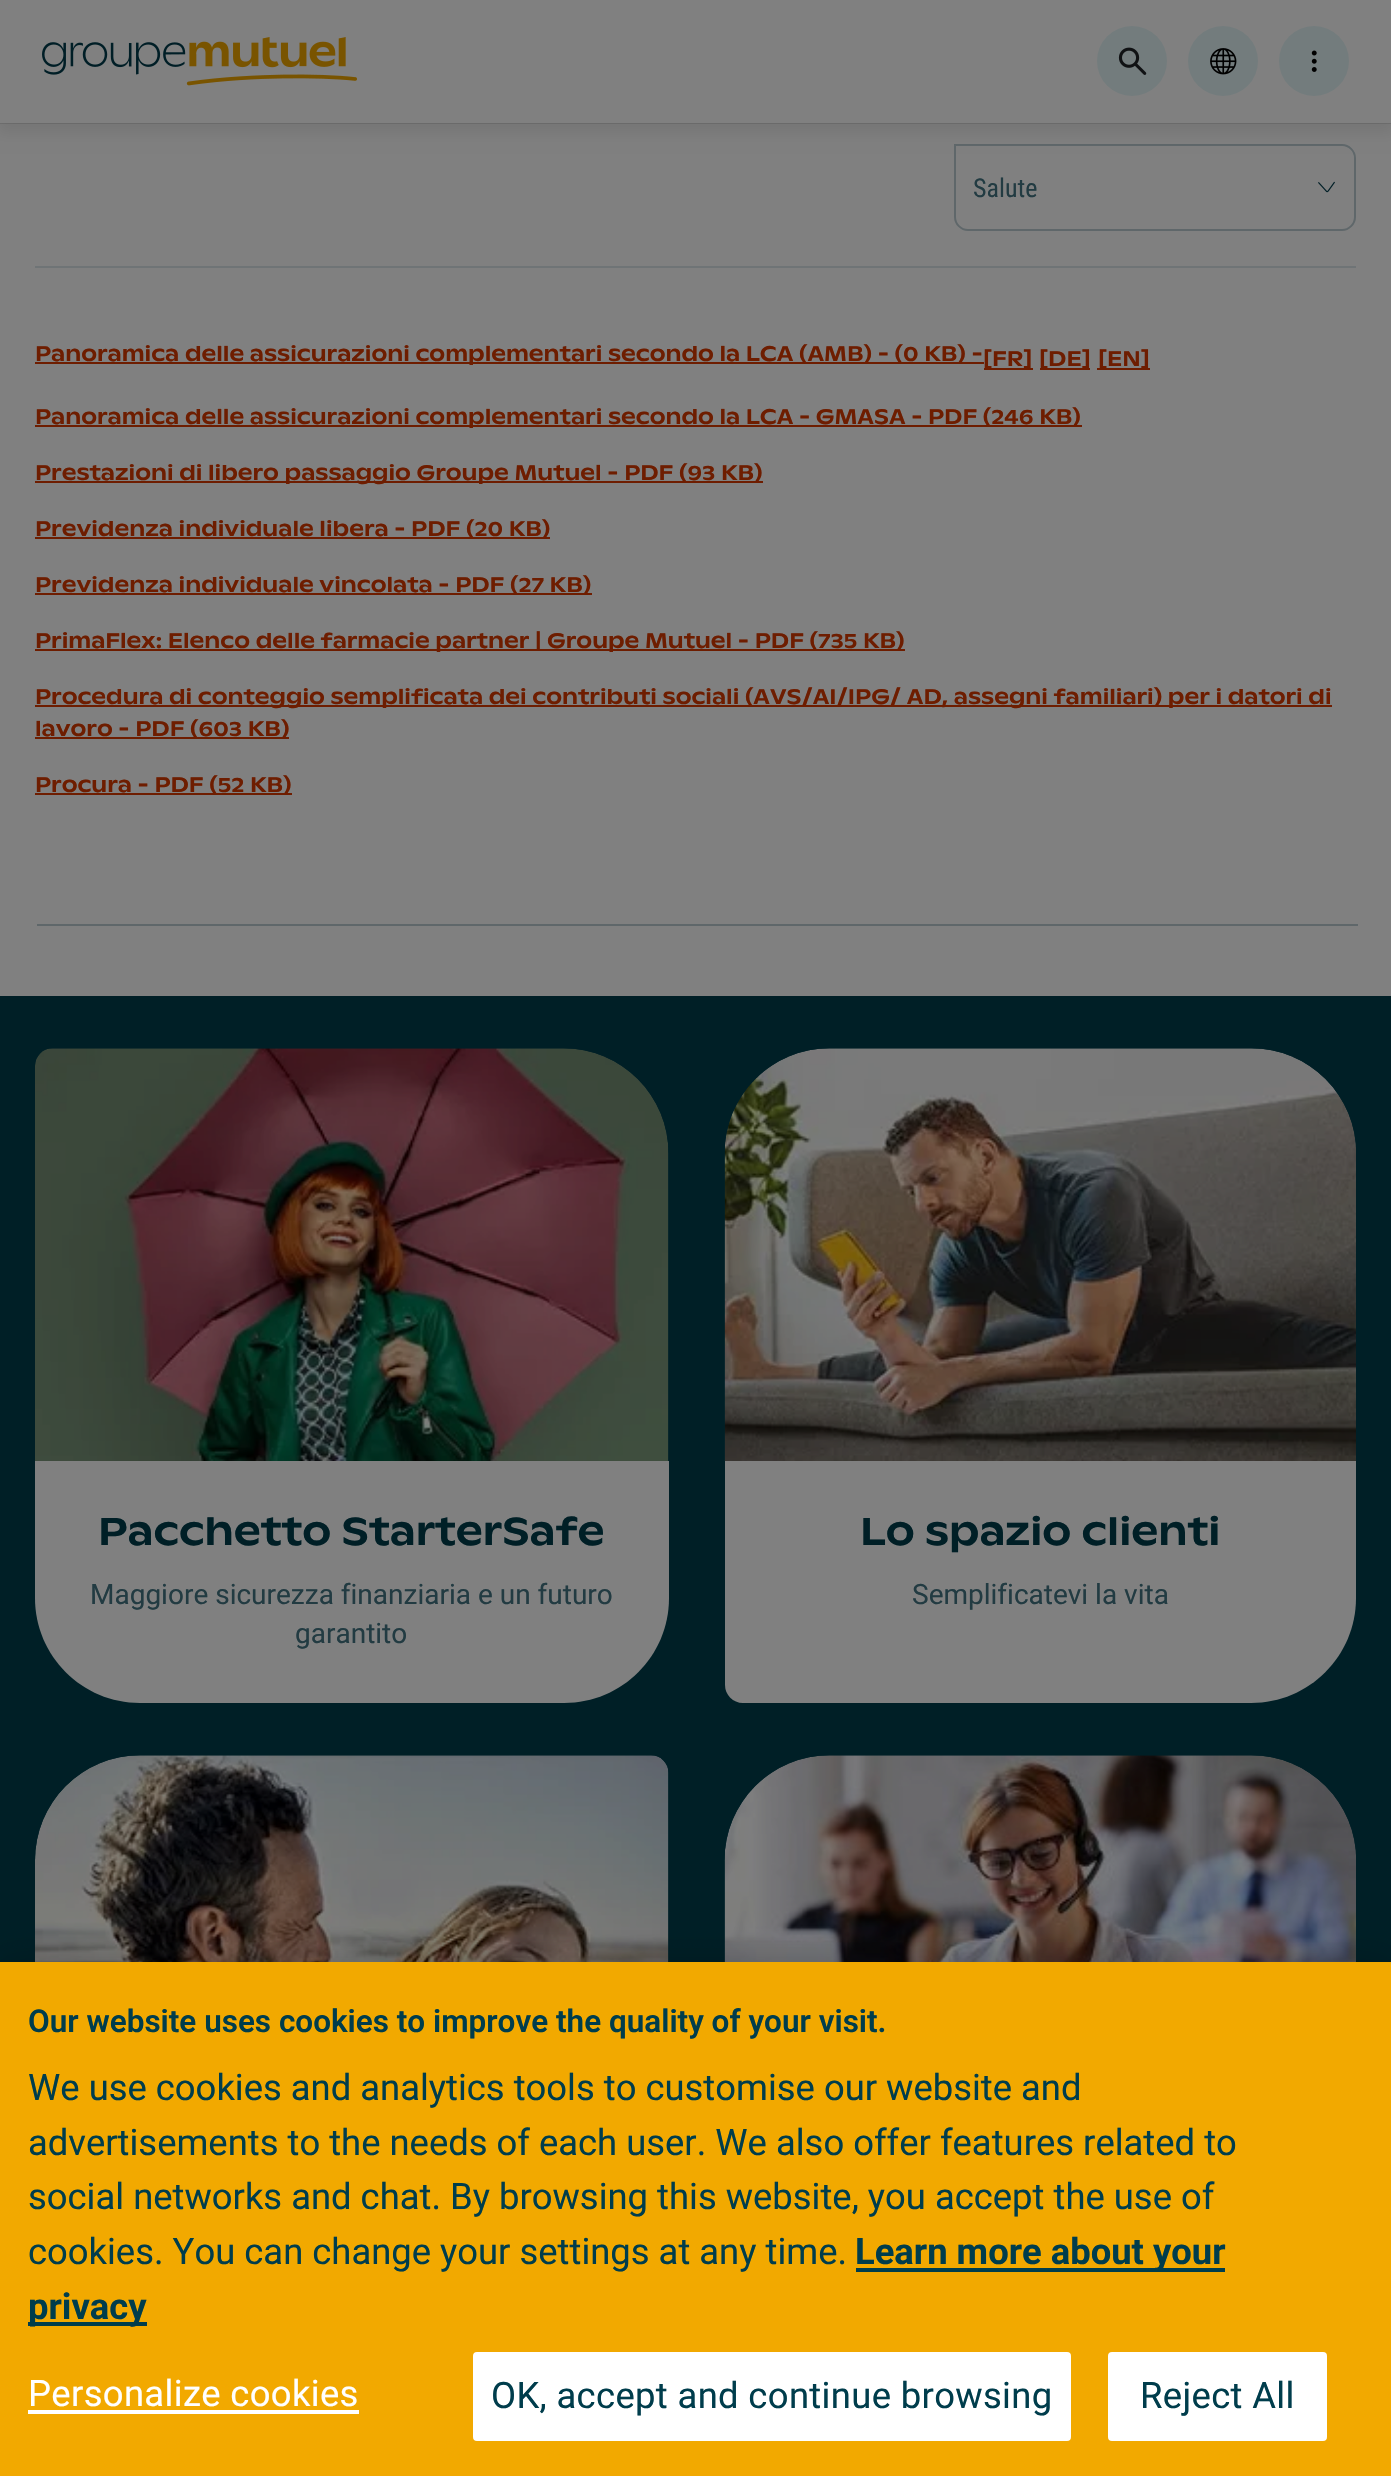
void draw(SkCanvas* canvas) {
  SkPaint paint;
  paint.setAntiAlias(true);
  auto face = [&](const char* family, int weight, float size, bool italic = false) {
    SkFontStyle style(weight, SkFontStyle::kNormal_Width,
      italic ? SkFontStyle::kItalic_Slant : SkFontStyle::kUpright_Slant);
    SkFont result(fontMgr->matchFamilyStyle(family, style), size);
    result.setSubpixel(true);
    return result;
  };
  auto writeSpaced = [&](const char* s, float x, float y, const SkFont& font, const SkPaint& ink, float letter, float word) {
    std::vector<SkGlyphID> glyphs(font.countText(s, strlen(s), SkTextEncoding::kUTF8));
    std::vector<float> xs(glyphs.size());
    font.textToGlyphs(s, strlen(s), SkTextEncoding::kUTF8, glyphs);
    font.getXPos(glyphs, xs, x);
    float extra = 0;
    for (size_t i = 0; i < glyphs.size(); i++) {
      xs[i] += extra;
      extra += letter + word * (glyphs[i] == font.unicharToGlyph(' '));
    }
    canvas->drawTextBlob(SkTextBlob::MakeFromPosHGlyphs(glyphs, xs, y, font), 0, 0, ink);
  };
  auto paste = [&](const char* path, float x, float y, float w, float h) {
    auto image = SkImages::DeferredFromEncodedData(SkData::MakeFromFileName(path));
    canvas->drawImageRect(image, SkRect::MakeXYWH(x, y, w, h), SkSamplingOptions());
  };
  auto shape = [&](const char* data, bool evenOdd = false) {
    SkPath result = *SkParsePath::FromSVGString(data);
    if (evenOdd) result.setFillType(SkPathFillType::kEvenOdd);
    return result;
  };
  canvas->clear(0xff808080);
  paint.setStroke(true);
  paint.setStrokeWidth(2);
  paint.setColor(0xff5f676a);
  canvas->drawPath(shape("M955 145H1342C1349 145 1355 151 1355 158V217C1355 224 1349 230 1342 230H968C961 230 955 224 955 217Z"), paint);
  paint.setStroke(false);
  paint.setColor(0x14000000);
  paint.setMaskFilter(SkMaskFilter::MakeBlur(kNormal_SkBlurStyle, 7));
  canvas->drawRect(SkRect::MakeXYWH(-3, 4, 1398, 129), paint);
  paint.setMaskFilter(nullptr);
  paint.setColor(0x1a000000);
  canvas->drawRect(SkRect::MakeXYWH(0, 123, 1391, 1), paint);
  paint.setColor(0xff808080);
  canvas->drawRect(SkRect::MakeXYWH(0, 0, 1391, 123), paint);
  paste("img/1.png", 42, 37, 315, 49);
  paint.setColor(0xff737c7d);
  canvas->drawCircle(1132, 61, 35, paint);
  paste("img/2.png", 1118, 47, 29, 28);
  canvas->drawCircle(1223, 61, 35, paint);
  paste("img/3.png", 1210, 48, 27, 27);
  canvas->drawCircle(1314, 61, 35, paint);
  paste("img/4.png", 1311, 50, 6, 22);
  paint.setColor(0xff6f7476);
  canvas->drawRect(SkRect::MakeXYWH(35, 266, 1321, 2), paint);
  paste("img/5.png", 1318, 181, 17, 12);
  {
    const struct { float x, y, w, h; SkColor color; } items[] = {
      {35, 362, 949, 2, 0xff6e1d00},
      {984, 368, 49, 2, 0xff6e1d00},
      {1040, 368, 50, 2, 0xff6e1d00},
      {1097, 368, 53, 2, 0xff6e1d00},
      {35, 425, 1047, 2, 0xff6e1d00},
      {35, 481, 728, 2, 0xff6e1d00},
      {35, 537, 515, 2, 0xff6e1d00},
      {35, 593, 557, 2, 0xff6e1d00},
      {35, 649, 870, 2, 0xff6e1d00},
      {35, 705, 1297, 2, 0xff6e1d00},
      {35, 737, 254, 2, 0xff6e1d00},
      {35, 793, 257, 2, 0xff6e1d00},
      {37, 924, 1321, 2, 0xff5f676a},
      {0, 996, 1391, 966, 0xff001f26},
    };
    for (auto [x, y, w, h, color] : items) {
      paint.setColor(color);
      canvas->drawRect(SkRect::MakeXYWH(x, y, w, h), paint);
    }
  }
  paste("img/6.png", 35, 1048, 634, 413);
  paint.setColor(0xff808080);
  canvas->drawPath(shape("M35 1461H669V1598C669 1656 622 1703 564 1703H140C82 1703 35 1656 35 1598Z"), paint);
  paste("img/7.png", 724, 1048, 632, 413);
  canvas->drawPath(shape("M725 1461H1356V1598C1356 1656 1309 1703 1251 1703H743C733 1703 725 1695 725 1685Z"), paint);
  paste("img/8.png", 35, 1755, 634, 207);
  paste("img/9.png", 724, 1755, 632, 207);
  paint.setColor(0x33000000);
  paint.setMaskFilter(SkMaskFilter::MakeBlur(kNormal_SkBlurStyle, 16));
  canvas->drawRect(SkRect::MakeXYWH(0, 1962, 1391, 514), paint);
  paint.setMaskFilter(nullptr);
  {
    const struct { float x, y, w, h; SkColor color; } items[] = {
      {0, 1962, 1391, 514, 0xfff2a900},
      {856, 2268, 369, 4, 0xff003d4c},
      {28, 2322, 119, 4, 0xff003d4c},
      {28, 2410, 331, 4, 0xffffffff},
    };
    for (auto [x, y, w, h, color] : items) {
      paint.setColor(color);
      canvas->drawRect(SkRect::MakeXYWH(x, y, w, h), paint);
    }
  }
  canvas->drawRoundRect(SkRect::MakeXYWH(474, 2353, 596, 87), 3, 3, paint);
  paint.setStroke(true);
  canvas->drawRoundRect(SkRect::MakeXYWH(474, 2353, 596, 87), 3, 3, paint);
  paint.setStroke(false);
  canvas->drawRoundRect(SkRect::MakeXYWH(1109, 2353, 217, 87), 3, 3, paint);
  paint.setStroke(true);
  canvas->drawRoundRect(SkRect::MakeXYWH(1109, 2353, 217, 87), 3, 3, paint);
  auto f0 = face("Roboto Condensed", 400, 26);
  paint.setStroke(false);
  paint.setColor(0xff223b42);
  canvas->drawString("Salute", 973, 197, f0, paint);
  auto f1 = face("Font", 500, 21);
  paint.setColor(0xff6e1d00);
  {
    const struct { const char* s; float x, y; } items[] = {
      {"Panoramica delle assicurazioni complementari secondo la LCA (AMB) - (0 KB) -", 35, 361},
      {"[FR]", 983, 366},
      {"[DE]", 1039, 366},
      {"[EN]", 1098, 366},
      {"Panoramica delle assicurazioni complementari secondo la LCA - GMASA - PDF (246 KB)", 35, 424},
      {"Prestazioni di libero passaggio Groupe Mutuel - PDF (93 KB)", 35, 480},
      {"Previdenza individuale libera - PDF (20 KB)", 35, 536},
      {"Previdenza individuale vincolata - PDF (27 KB)", 35, 592},
      {"PrimaFlex: Elenco delle farmacie partner | Groupe Mutuel - PDF (735 KB)", 35, 648},
      {"Procedura di conteggio semplificata dei contributi sociali (AVS/AI/IPG/ AD, assegni familiari) per i datori di", 35, 704},
      {"lavoro - PDF (603 KB)", 35, 736},
      {"Procura - PDF (52 KB)", 35, 792},
    };
    for (auto [s, x, y] : items) {
      canvas->drawString(s, x, y, f1, paint);
    }
  }
  auto f2 = face("Font", 500, 38.5f);
  paint.setColor(0xff001f26);
  canvas->drawString("Pacchetto StarterSafe", 98, 1545, f2, paint);
  auto f3 = face("Roboto", 400, 28);
  paint.setColor(0xff223b42);
  canvas->drawString("Maggiore sicurezza finanziaria e un futuro", 90, 1604, f3, paint);
  canvas->drawString("garantito", 295, 1643, f3, paint);
  paint.setColor(0xff001f26);
  canvas->drawString("Lo spazio clienti", 860, 1545, f2, paint);
  paint.setColor(0xff223b42);
  canvas->drawString("Semplificatevi la vita", 912, 1604, f3, paint);
  auto f4 = face("Roboto", 600, 31.5f);
  paint.setColor(0xff003d4c);
  canvas->drawString("Our website uses cookies to improve the quality of your visit.", 28, 2032, f4, paint);
  auto f5 = face("Roboto", 400, 36.4f);
  {
    const struct { const char* s; float x, y; } items[] = {
      {"We use cookies and analytics tools to customise our website and", 28, 2100},
      {"advertisements to the needs of each user. We also offer features related to", 28, 2155},
      {"social networks and chat. By browsing this website, you accept the use of", 28, 2209},
      {"cookies. You can change your settings at any time.", 28, 2264},
    };
    for (auto [s, x, y] : items) {
      canvas->drawString(s, x, y, f5, paint);
    }
  }
  auto f6 = face("Roboto", 700, 36.4f);
  canvas->drawString("Learn more about your", 855, 2264, f6, paint);
  canvas->drawString("privacy", 28, 2319, f6, paint);
  paint.setColor(0xffffffff);
  writeSpaced("Personalize cookies", 28, 2406, f5, paint, 0.35f, 0);
  paint.setColor(0xff003d4c);
  writeSpaced("OK, accept and continue browsing", 491, 2408, f5, paint, 0.35f, 0);
  writeSpaced("Reject All", 1140, 2408, f5, paint, 0.35f, 0);
}
